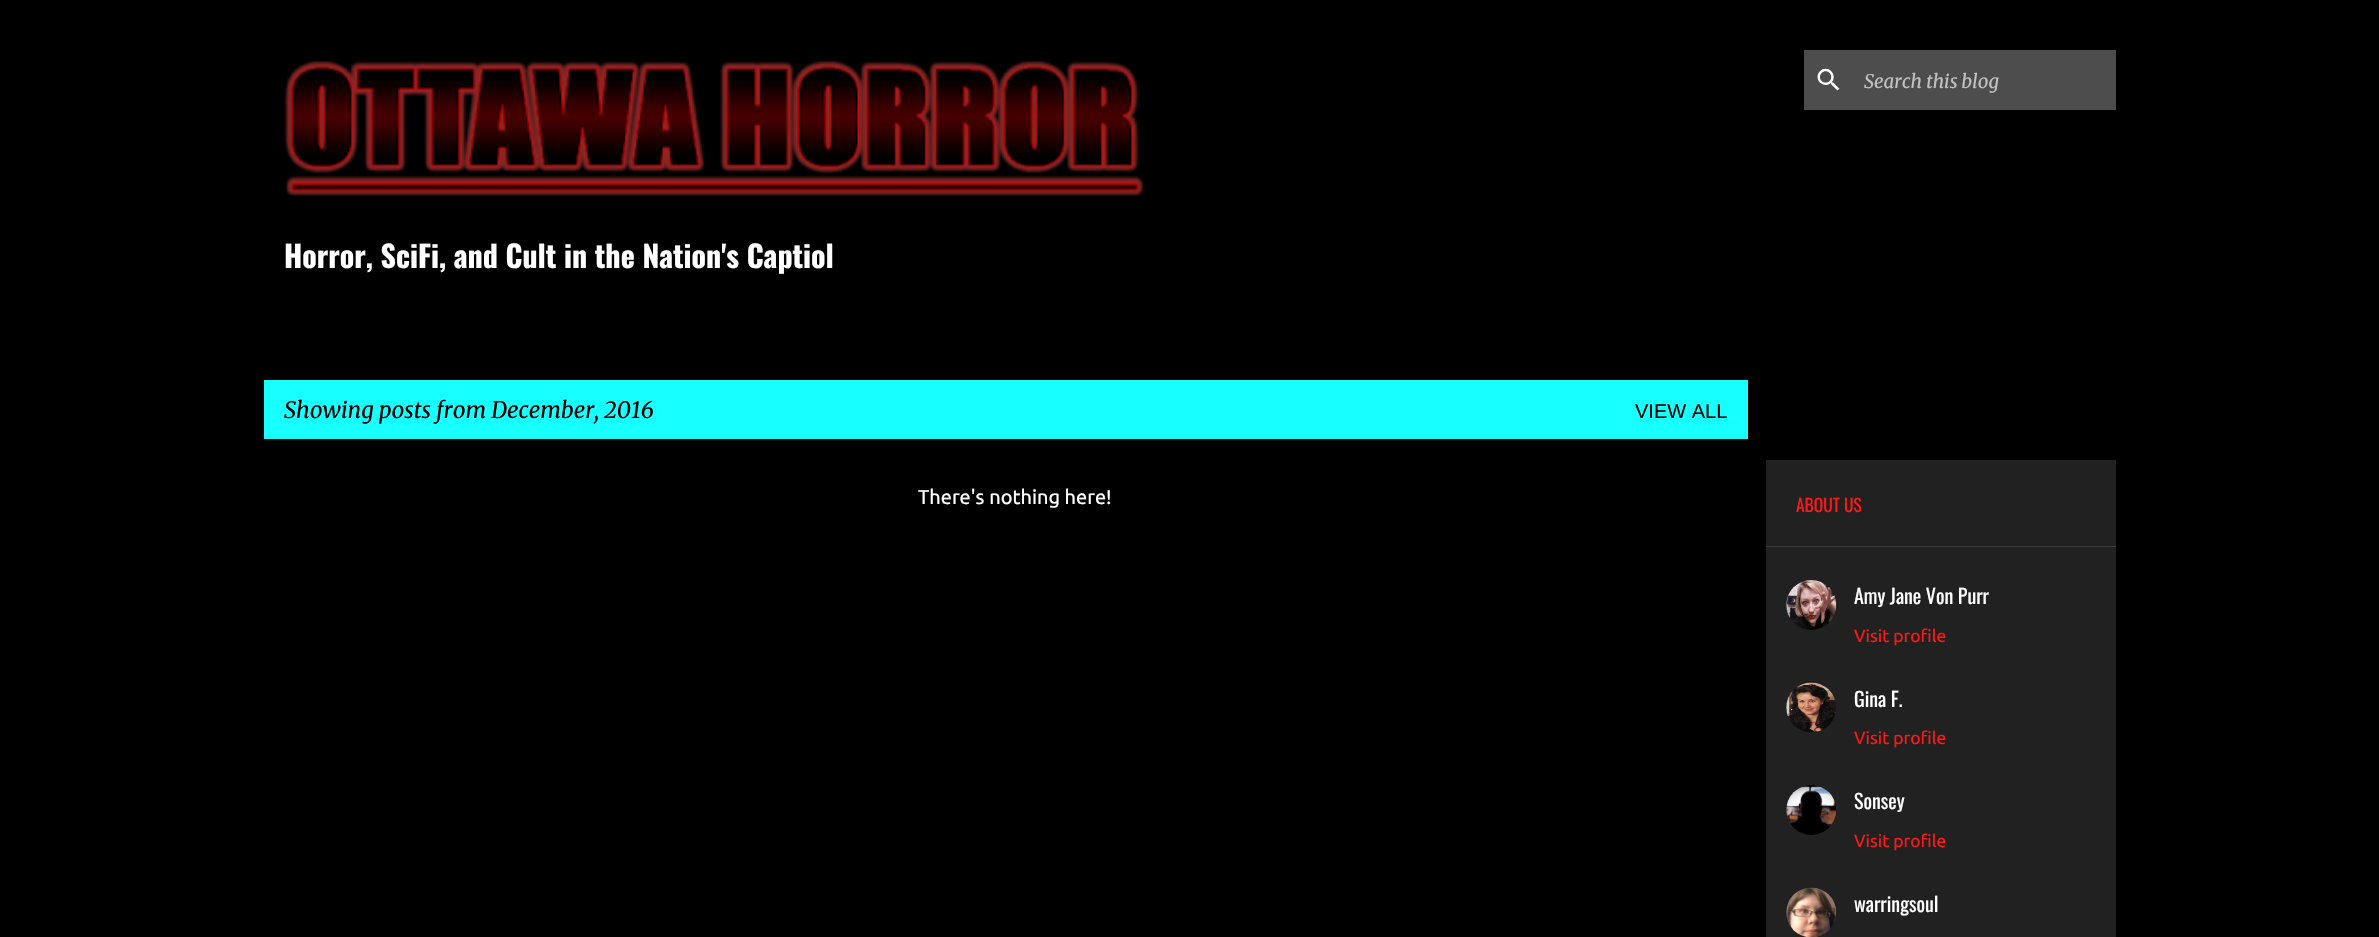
void draw(SkCanvas* canvas) {
  SkPaint paint;
  paint.setAntiAlias(true);
  auto face = [&](const char* family, int weight, float size, bool italic = false) {
    SkFontStyle style(weight, SkFontStyle::kNormal_Width,
      italic ? SkFontStyle::kItalic_Slant : SkFontStyle::kUpright_Slant);
    SkFont result(fontMgr->matchFamilyStyle(family, style), size);
    result.setSubpixel(true);
    return result;
  };
  auto paste = [&](const char* path, float x, float y, float w, float h) {
    auto image = SkImages::DeferredFromEncodedData(SkData::MakeFromFileName(path));
    canvas->drawImageRect(image, SkRect::MakeXYWH(x, y, w, h), SkSamplingOptions());
  };
  canvas->clear(0xff000000);
  paint.setColor(0xff4d4d4d);
  canvas->drawRect(SkRect::MakeXYWH(1804, 50, 312, 60), paint);
  paste("img/1.png", 1817, 68, 23, 23);
  paste("img/2.png", 284, 61, 859, 135);
  {
    const struct { float x, y, w, h; SkColor color; } items[] = {
      {264, 380, 1484, 59, 0xff18ffff},
      {1766, 460, 350, 477, 0xff212121},
      {1766, 546, 350, 1, 0xff3c3c3c},
    };
    for (auto [x, y, w, h, color] : items) {
      paint.setColor(color);
      canvas->drawRect(SkRect::MakeXYWH(x, y, w, h), paint);
    }
  }
  paste("img/3.png", 1786, 580, 51, 50);
  paste("img/4.png", 1786, 682, 50, 51);
  paste("img/5.png", 1786, 785, 50, 50);
  paste("img/6.png", 1786, 887, 51, 50);
  auto f0 = face("Merriweather", 300, 18.75f, true);
  paint.setColor(0xffc2c2c2);
  canvas->drawString("Search this blog", 1864, 88, f0, paint);
  auto f1 = face("Oswald", 700, 30);
  paint.setColor(0xffffffff);
  canvas->drawString("Horror, SciFi, and Cult in the Nation's Captiol", 284, 268, f1, paint);
  auto f2 = face("Merriweather", 300, 22.5f, true);
  paint.setColor(0xff000000);
  canvas->drawString("Showing posts from December, 2016", 284, 418, f2, paint);
  auto f3 = face("Liberation Sans", 400, 20);
  canvas->drawString("VIEW ALL", 1635, 418, f3, paint);
  auto f4 = face("Ubuntu", 400, 20);
  paint.setColor(0xffffffff);
  canvas->drawString("There's nothing here!", 918, 504, f4, paint);
  auto f5 = face("Oswald", 400, 17.5f);
  paint.setColor(0xffff1818);
  canvas->drawString("ABOUT US", 1796, 512, f5, paint);
  auto f6 = face("Oswald", 400, 20);
  paint.setColor(0xffffffff);
  canvas->drawString("Amy Jane Von Purr", 1854, 604, f6, paint);
  auto f7 = face("Ubuntu", 400, 17.5f);
  paint.setColor(0xffff1818);
  canvas->drawString("Visit profile", 1854, 642, f7, paint);
  paint.setColor(0xffffffff);
  canvas->drawString("Gina F.", 1854, 707, f6, paint);
  paint.setColor(0xffff1818);
  canvas->drawString("Visit profile", 1854, 744, f7, paint);
  paint.setColor(0xffffffff);
  canvas->drawString("Sonsey", 1854, 809, f6, paint);
  paint.setColor(0xffff1818);
  canvas->drawString("Visit profile", 1854, 847, f7, paint);
  paint.setColor(0xffffffff);
  canvas->drawString("warringsoul", 1854, 912, f6, paint);
}
